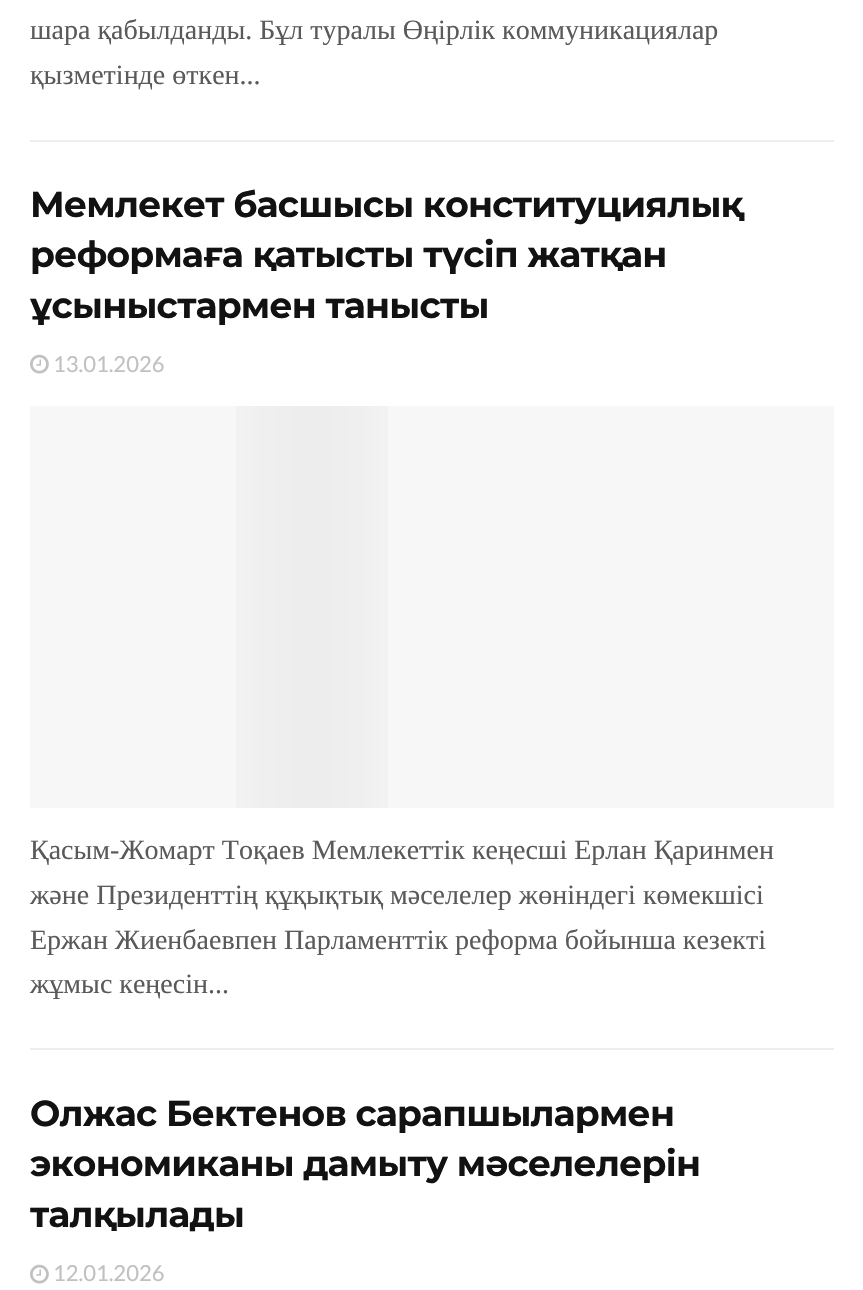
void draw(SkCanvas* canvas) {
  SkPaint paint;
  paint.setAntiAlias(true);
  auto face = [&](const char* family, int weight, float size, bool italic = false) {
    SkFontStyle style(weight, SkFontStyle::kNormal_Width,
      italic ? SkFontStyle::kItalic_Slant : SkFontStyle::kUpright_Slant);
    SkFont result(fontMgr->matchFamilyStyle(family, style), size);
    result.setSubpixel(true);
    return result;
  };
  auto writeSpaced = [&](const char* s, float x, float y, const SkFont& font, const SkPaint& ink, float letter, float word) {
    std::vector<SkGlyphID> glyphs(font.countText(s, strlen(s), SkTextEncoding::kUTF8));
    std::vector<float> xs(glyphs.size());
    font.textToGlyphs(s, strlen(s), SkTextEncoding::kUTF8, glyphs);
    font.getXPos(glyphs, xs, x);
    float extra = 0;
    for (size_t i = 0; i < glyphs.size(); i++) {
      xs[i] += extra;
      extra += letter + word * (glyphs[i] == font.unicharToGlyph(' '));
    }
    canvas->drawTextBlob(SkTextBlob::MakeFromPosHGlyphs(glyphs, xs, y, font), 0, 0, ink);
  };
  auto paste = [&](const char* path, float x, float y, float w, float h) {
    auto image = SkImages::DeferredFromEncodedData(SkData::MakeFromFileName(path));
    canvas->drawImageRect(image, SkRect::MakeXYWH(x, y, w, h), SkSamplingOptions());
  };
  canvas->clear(0xffffffff);
  paint.setColor(0xffeeeeee);
  canvas->drawRect(SkRect::MakeXYWH(30, 140, 804, 2), paint);
  canvas->drawRect(SkRect::MakeXYWH(30, 1048, 804, 2), paint);
  paste("img/1.png", 30, 354, 19, 20);
  paint.setColor(0xfff7f7f7);
  canvas->drawRect(SkRect::MakeXYWH(30, 406, 804, 402), paint);
  paste("img/2.png", 236, 406, 152, 402);
  paste("img/1.png", 30, 1264, 19, 20);
  auto f0 = face("Liberation Serif", 400, 28);
  paint.setColor(0xff5a5a5a);
  canvas->drawString("шара қабылданды. Бұл туралы Өңірлік коммуникациялар", 30, 39, f0, paint);
  canvas->drawString("қызметінде өткен...", 30, 84, f0, paint);
  auto f1 = face("Montserrat", 700, 36);
  paint.setColor(0xff121212);
  {
    const struct { const char* s; float x, y; } items[] = {
      {"Мемлекет басшысы конституциялық", 30, 217},
      {"реформаға қатысты түсіп жатқан", 30, 267},
      {"ұсыныстармен танысты", 30, 318},
    };
    for (auto [s, x, y] : items) {
      writeSpaced(s, x, y, f1, paint, -0.75f, 0);
    }
  }
  auto f2 = face("Lato", 400, 22);
  paint.setColor(0xffc1c1c1);
  canvas->drawString("13.01.2026", 53, 372, f2, paint);
  paint.setColor(0xff5a5a5a);
  {
    const struct { const char* s; float x, y; } items[] = {
      {"Қасым-Жомарт Тоқаев Мемлекеттік кеңесші Ерлан Қаринмен", 30, 859},
      {"және Президенттің құқықтық мәселелер жөніндегі көмекшісі", 30, 904},
      {"Ержан Жиенбаевпен Парламенттік реформа бойынша кезекті", 30, 949},
      {"жұмыс кеңесін...", 30, 993},
    };
    for (auto [s, x, y] : items) {
      canvas->drawString(s, x, y, f0, paint);
    }
  }
  paint.setColor(0xff121212);
  {
    const struct { const char* s; float x, y; } items[] = {
      {"Олжас Бектенов сарапшылармен", 30, 1126},
      {"экономиканы дамыту мәселелерін", 30, 1176},
      {"талқылады", 30, 1227},
    };
    for (auto [s, x, y] : items) {
      writeSpaced(s, x, y, f1, paint, -0.75f, 0);
    }
  }
  paint.setColor(0xffc1c1c1);
  canvas->drawString("12.01.2026", 53, 1281, f2, paint);
}
